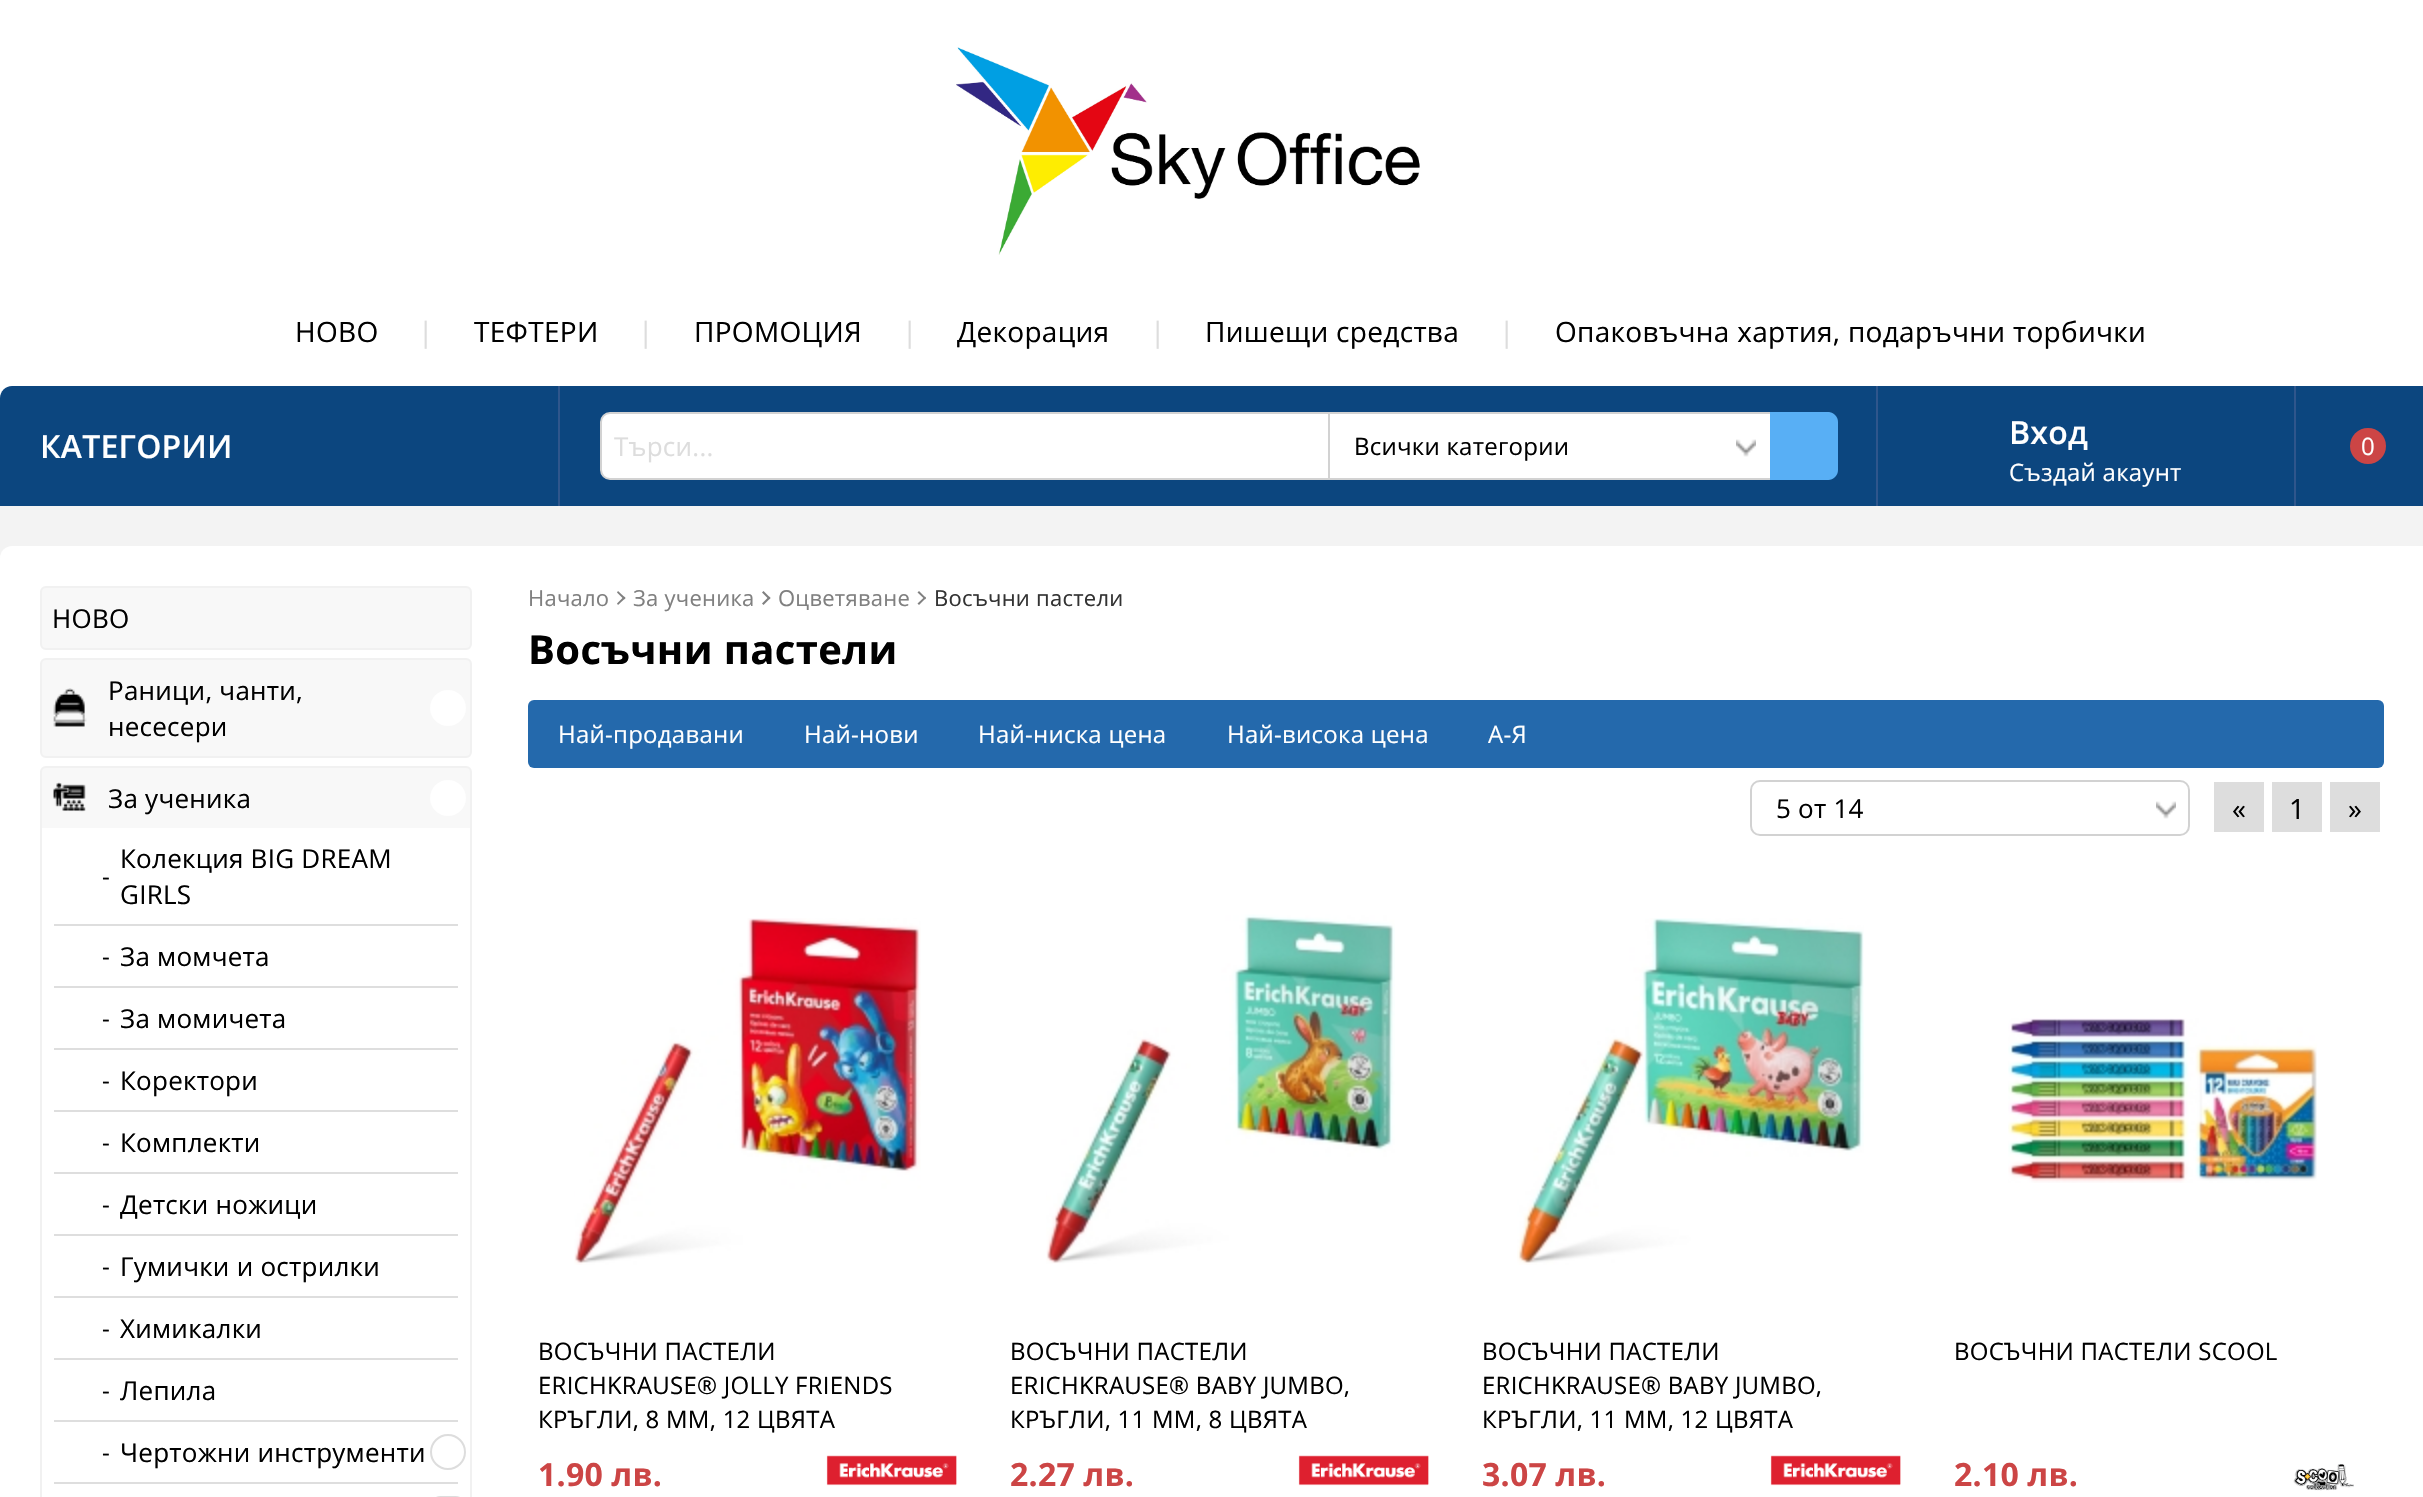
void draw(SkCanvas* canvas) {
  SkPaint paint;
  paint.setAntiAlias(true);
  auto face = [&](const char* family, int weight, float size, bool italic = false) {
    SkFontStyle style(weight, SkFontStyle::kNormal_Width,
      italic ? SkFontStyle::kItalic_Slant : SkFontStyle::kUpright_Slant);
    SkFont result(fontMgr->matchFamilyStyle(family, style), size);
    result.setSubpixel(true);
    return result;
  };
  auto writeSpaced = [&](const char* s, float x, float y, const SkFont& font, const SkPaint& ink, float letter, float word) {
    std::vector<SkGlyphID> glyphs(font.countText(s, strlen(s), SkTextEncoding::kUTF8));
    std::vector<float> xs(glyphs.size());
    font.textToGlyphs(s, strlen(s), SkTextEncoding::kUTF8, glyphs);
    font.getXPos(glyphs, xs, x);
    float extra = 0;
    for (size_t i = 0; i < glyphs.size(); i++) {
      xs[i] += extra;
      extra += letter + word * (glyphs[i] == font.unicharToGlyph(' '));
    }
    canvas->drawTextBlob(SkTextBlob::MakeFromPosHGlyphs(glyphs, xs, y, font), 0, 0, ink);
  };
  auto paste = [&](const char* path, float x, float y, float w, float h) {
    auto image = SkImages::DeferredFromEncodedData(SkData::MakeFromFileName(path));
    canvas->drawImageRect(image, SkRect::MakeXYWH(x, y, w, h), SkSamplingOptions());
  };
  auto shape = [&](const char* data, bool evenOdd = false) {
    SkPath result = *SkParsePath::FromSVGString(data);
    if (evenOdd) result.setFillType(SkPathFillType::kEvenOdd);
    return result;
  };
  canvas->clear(0xfff3f3f3);
  paint.setColor(0xffffffff);
  canvas->drawRect(SkRect::MakeXYWH(0, 0, 2423, 398), paint);
  paste("img/1.png", 956, 47, 464, 208);
  paint.setColor(0xff0c467f);
  canvas->drawPath(shape("M12 386H2423C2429.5 386 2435 391.5 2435 398V506H0V398C0 391.5 5.5 386 12 386Z"), paint);
  paint.setColor(0xff2f568c);
  canvas->drawRect(SkRect::MakeXYWH(558, 386, 2, 120), paint);
  canvas->drawRect(SkRect::MakeXYWH(1876, 386, 2, 120), paint);
  paint.setColor(0xffffffff);
  canvas->drawRoundRect(SkRect::MakeXYWH(601, 413, 1234, 66), 9, 9, paint);
  paint.setStroke(true);
  paint.setStrokeWidth(2);
  paint.setColor(0xffd2d2d2);
  canvas->drawRoundRect(SkRect::MakeXYWH(601, 413, 1234, 66), 9, 9, paint);
  paste("img/2.png", 1736, 439, 20, 18);
  paint.setStroke(false);
  canvas->drawRect(SkRect::MakeXYWH(1328, 412, 2, 68), paint);
  paint.setColor(0xff58aff5);
  canvas->drawPath(shape("M1770 412H1828C1833.5 412 1838 416.5 1838 422V470C1838 475.5 1833.5 480 1828 480H1770Z"), paint);
  paint.setColor(0xff2f568c);
  canvas->drawRect(SkRect::MakeXYWH(2294, 386, 2, 120), paint);
  paint.setColor(0xffcc4545);
  canvas->drawCircle(2368, 446, 18, paint);
  paint.setColor(0xffffffff);
  canvas->drawRoundRect(SkRect::MakeXYWH(0, 546, 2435, 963), 12, 12, paint);
  paint.setColor(0xfff8f8f8);
  canvas->drawRoundRect(SkRect::MakeXYWH(41, 587, 430, 62), 5, 5, paint);
  paint.setStroke(true);
  paint.setColor(0xfff1f1f1);
  canvas->drawRoundRect(SkRect::MakeXYWH(41, 587, 430, 62), 5, 5, paint);
  paint.setStroke(false);
  paint.setColor(0xfff8f8f8);
  canvas->drawRoundRect(SkRect::MakeXYWH(41, 659, 430, 98), 5, 5, paint);
  paint.setStroke(true);
  paint.setColor(0xfff1f1f1);
  canvas->drawRoundRect(SkRect::MakeXYWH(41, 659, 430, 98), 5, 5, paint);
  paste("img/3.png", 53, 688, 34, 39);
  paint.setStroke(false);
  paint.setColor(0xffffffff);
  canvas->drawCircle(448, 708, 18, paint);
  paint.setColor(0xfff8f8f8);
  canvas->drawRoundRect(SkRect::MakeXYWH(41, 767, 430, 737), 5, 5, paint);
  paint.setStroke(true);
  paint.setColor(0xfff1f1f1);
  canvas->drawRoundRect(SkRect::MakeXYWH(41, 767, 430, 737), 5, 5, paint);
  paste("img/4.png", 53, 782, 33, 30);
  paint.setStroke(false);
  paint.setColor(0xffffffff);
  canvas->drawCircle(448, 798, 18, paint);
  {
    const struct { float x, y, w, h; SkColor color; } items[] = {
      {42, 828, 428, 669, 0xffffffff},
      {54, 924, 404, 2, 0xffdedede},
      {54, 986, 404, 2, 0xffdedede},
      {54, 1048, 404, 2, 0xffdedede},
      {54, 1110, 404, 2, 0xffdedede},
      {54, 1172, 404, 2, 0xffdedede},
      {54, 1234, 404, 2, 0xffdedede},
      {54, 1296, 404, 2, 0xffdedede},
      {54, 1358, 404, 2, 0xffdedede},
      {54, 1420, 404, 2, 0xffdedede},
      {54, 1482, 404, 2, 0xffdedede},
    };
    for (auto [x, y, w, h, color] : items) {
      paint.setColor(color);
      canvas->drawRect(SkRect::MakeXYWH(x, y, w, h), paint);
    }
  }
  paint.setStroke(true);
  paint.setColor(0xffdddddd);
  canvas->drawCircle(448, 1452, 17, paint);
  canvas->drawRoundRect(SkRect::MakeXYWH(431, 1497, 34, 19), 17, 17, paint);
  paint.setStroke(false);
  paint.setColor(0xff808080);
  canvas->drawPath(shape("M617 592.5L618 591L625.5 598L624 599.5Z"), paint);
  canvas->drawPath(shape("M617 603.5L624 596.5L625.5 598L618 605Z"), paint);
  canvas->drawPath(shape("M762 592.5L763.5 591L770.5 598L769 599.5Z"), paint);
  canvas->drawPath(shape("M762 603.5L769 596.5L770.5 598L763.5 605Z"), paint);
  canvas->drawPath(shape("M917.5 592.5L919 591L926 598L925 599.5Z"), paint);
  canvas->drawPath(shape("M917.5 603.5L925 596.5L926 598L919 605Z"), paint);
  paint.setColor(0xff2469ac);
  canvas->drawRoundRect(SkRect::MakeXYWH(528, 700, 1856, 68), 6, 6, paint);
  paste("img/2.png", 2156, 801, 20, 18);
  paint.setStroke(true);
  paint.setColor(0xffd2d2d2);
  canvas->drawRoundRect(SkRect::MakeXYWH(1751, 781, 438, 54), 9, 9, paint);
  paint.setStroke(false);
  {
    const struct { float x, y, w, h; SkColor color; } items[] = {
      {2214, 782, 50, 50, 0xffdddddd},
      {2272, 782, 50, 50, 0xffdddddd},
      {2330, 782, 50, 50, 0xffdddddd},
    };
    for (auto [x, y, w, h, color] : items) {
      paint.setColor(color);
      canvas->drawRect(SkRect::MakeXYWH(x, y, w, h), paint);
    }
  }
  paste("img/5.png", 574, 918, 347, 347);
  paste("img/6.png", 826, 1455, 131, 31);
  paste("img/7.png", 1046, 914, 349, 350);
  paste("img/6.png", 1298, 1455, 131, 31);
  paste("img/8.png", 1517, 918, 347, 347);
  paste("img/6.png", 1770, 1455, 131, 31);
  paste("img/9.png", 2008, 1018, 309, 165);
  paste("img/10.png", 2293, 1464, 61, 27);
  auto f0 = face("Open Sans", 400, 28);
  paint.setColor(0xff000000);
  writeSpaced("НОВО", 295, 342, f0, paint, 0.3f, 0);
  paint.setColor(0xffdddddd);
  writeSpaced("|", 418, 342, f0, paint, 0.3f, 0);
  paint.setColor(0xff000000);
  writeSpaced("ТЕФТЕРИ", 474, 342, f0, paint, 0.3f, 0);
  paint.setColor(0xffdddddd);
  writeSpaced("|", 638, 342, f0, paint, 0.3f, 0);
  paint.setColor(0xff000000);
  writeSpaced("ПРОМОЦИЯ", 694, 342, f0, paint, 0.3f, 0);
  paint.setColor(0xffdddddd);
  writeSpaced("|", 902, 342, f0, paint, 0.3f, 0);
  paint.setColor(0xff000000);
  writeSpaced("Декорация", 957, 342, f0, paint, 0.3f, 0);
  paint.setColor(0xffdddddd);
  writeSpaced("|", 1150, 342, f0, paint, 0.3f, 0);
  paint.setColor(0xff000000);
  writeSpaced("Пишещи средства", 1205, 342, f0, paint, 0.3f, 0);
  paint.setColor(0xffdddddd);
  writeSpaced("|", 1499, 342, f0, paint, 0.3f, 0);
  paint.setColor(0xff000000);
  writeSpaced("Опаковъчна хартия, подаръчни торбички", 1555, 342, f0, paint, 0.3f, 0);
  auto f1 = face("Open Sans", 600, 32);
  paint.setColor(0xffffffff);
  writeSpaced("КАТЕГОРИИ", 40, 458, f1, paint, 0.25f, 0);
  auto f2 = face("Open Sans", 400, 26);
  paint.setColor(0xffdddddd);
  writeSpaced("Търси...", 614, 456, f2, paint, 0.25f, 0);
  auto f3 = face("Open Sans", 400, 24);
  paint.setColor(0xff000000);
  writeSpaced("Всички категории", 1354, 455, f3, paint, 0.25f, 0);
  paint.setColor(0xffffffff);
  writeSpaced("Вход", 2009, 444, f1, paint, 0.25f, 0);
  writeSpaced("Създай акаунт", 2009, 481, f3, paint, 0.25f, 0);
  writeSpaced("0", 2361, 455, f3, paint, 0.25f, 0);
  paint.setColor(0xff000000);
  {
    const struct { const char* s; float x, y; } items[] = {
      {"НОВО", 52, 628},
      {"Раници, чанти,", 108, 700},
      {"несесери", 108, 736},
      {"За ученика", 108, 808},
    };
    for (auto [s, x, y] : items) {
      writeSpaced(s, x, y, f2, paint, 0.25f, 0);
    }
  }
  writeSpaced("-", 102, 885, f3, paint, 0.25f, 0);
  writeSpaced("Колекция BIG DREAM", 120, 868, f2, paint, 0.25f, 0);
  writeSpaced("GIRLS", 120, 904, f2, paint, 0.25f, 0);
  writeSpaced("-", 102, 965, f3, paint, 0.25f, 0);
  writeSpaced("За момчета", 120, 966, f2, paint, 0.25f, 0);
  writeSpaced("-", 102, 1027, f3, paint, 0.25f, 0);
  writeSpaced("За момичета", 120, 1028, f2, paint, 0.25f, 0);
  writeSpaced("-", 102, 1089, f3, paint, 0.25f, 0);
  writeSpaced("Коректори", 120, 1090, f2, paint, 0.25f, 0);
  writeSpaced("-", 102, 1151, f3, paint, 0.25f, 0);
  writeSpaced("Комплекти", 120, 1152, f2, paint, 0.25f, 0);
  writeSpaced("-", 102, 1213, f3, paint, 0.25f, 0);
  writeSpaced("Детски ножици", 120, 1214, f2, paint, 0.25f, 0);
  writeSpaced("-", 102, 1275, f3, paint, 0.25f, 0);
  writeSpaced("Гумички и острилки", 120, 1276, f2, paint, 0.25f, 0);
  writeSpaced("-", 102, 1337, f3, paint, 0.25f, 0);
  writeSpaced("Химикалки", 120, 1338, f2, paint, 0.25f, 0);
  writeSpaced("-", 102, 1399, f3, paint, 0.25f, 0);
  writeSpaced("Лепила", 120, 1400, f2, paint, 0.25f, 0);
  writeSpaced("-", 102, 1461, f3, paint, 0.25f, 0);
  writeSpaced("Чертожни инструменти", 120, 1462, f2, paint, 0.25f, 0);
  auto f4 = face("Open Sans", 400, 22);
  paint.setColor(0xff808080);
  {
    const struct { const char* s; float x, y; } items[] = {
      {"Начало", 528, 606},
      {"За ученика", 633, 606},
      {"Оцветяване", 778, 606},
    };
    for (auto [s, x, y] : items) {
      writeSpaced(s, x, y, f4, paint, 0.25f, 0);
    }
  }
  paint.setColor(0xff333333);
  writeSpaced("Восъчни пастели", 934, 606, f4, paint, 0.25f, 0);
  auto f5 = face("Open Sans", 700, 40);
  paint.setColor(0xff000000);
  writeSpaced("Восъчни пастели", 528, 664, f5, paint, 0.4f, 0);
  paint.setColor(0xffffffff);
  {
    const struct { const char* s; float x, y; } items[] = {
      {"Най-продавани", 558, 743},
      {"Най-нови", 804, 743},
      {"Най-ниска цена", 978, 743},
      {"Най-висока цена", 1227, 743},
      {"А-Я", 1488, 743},
    };
    for (auto [s, x, y] : items) {
      writeSpaced(s, x, y, f3, paint, 0.25f, 0);
    }
  }
  paint.setColor(0xff000000);
  writeSpaced("5 от 14", 1776, 818, f2, paint, 0.25f, 0);
  {
    const struct { const char* s; float x, y; } items[] = {
      {"«", 2232, 819},
      {"1", 2289, 819},
      {"»", 2348, 819},
    };
    for (auto [s, x, y] : items) {
      writeSpaced(s, x, y, f0, paint, 0.3f, 0);
    }
  }
  {
    const struct { const char* s; float x, y; } items[] = {
      {"ВОСЪЧНИ ПАСТЕЛИ", 538, 1360},
      {"ERICHKRAUSE® JOLLY FRIENDS", 538, 1394},
      {"КРЪГЛИ, 8 ММ, 12 ЦВЯТА", 538, 1428},
    };
    for (auto [s, x, y] : items) {
      writeSpaced(s, x, y, f3, paint, 0.25f, 0);
    }
  }
  auto f6 = face("Open Sans", 700, 32);
  paint.setColor(0xffcc4545);
  writeSpaced("1.90 лв.", 538, 1486, f6, paint, 0.25f, 0);
  paint.setColor(0xff000000);
  {
    const struct { const char* s; float x, y; } items[] = {
      {"ВОСЪЧНИ ПАСТЕЛИ", 1010, 1360},
      {"ERICHKRAUSE® BABY JUMBO,", 1010, 1394},
      {"КРЪГЛИ, 11 ММ, 8 ЦВЯТА", 1010, 1428},
    };
    for (auto [s, x, y] : items) {
      writeSpaced(s, x, y, f3, paint, 0.25f, 0);
    }
  }
  paint.setColor(0xffcc4545);
  writeSpaced("2.27 лв.", 1010, 1486, f6, paint, 0.25f, 0);
  paint.setColor(0xff000000);
  {
    const struct { const char* s; float x, y; } items[] = {
      {"ВОСЪЧНИ ПАСТЕЛИ", 1482, 1360},
      {"ERICHKRAUSE® BABY JUMBO,", 1482, 1394},
      {"КРЪГЛИ, 11 ММ, 12 ЦВЯТА", 1482, 1428},
    };
    for (auto [s, x, y] : items) {
      writeSpaced(s, x, y, f3, paint, 0.25f, 0);
    }
  }
  paint.setColor(0xffcc4545);
  writeSpaced("3.07 лв.", 1482, 1486, f6, paint, 0.25f, 0);
  paint.setColor(0xff000000);
  writeSpaced("ВОСЪЧНИ ПАСТЕЛИ SCOOL", 1954, 1360, f3, paint, 0.25f, 0);
  paint.setColor(0xffcc4545);
  writeSpaced("2.10 лв.", 1954, 1486, f6, paint, 0.25f, 0);
}
